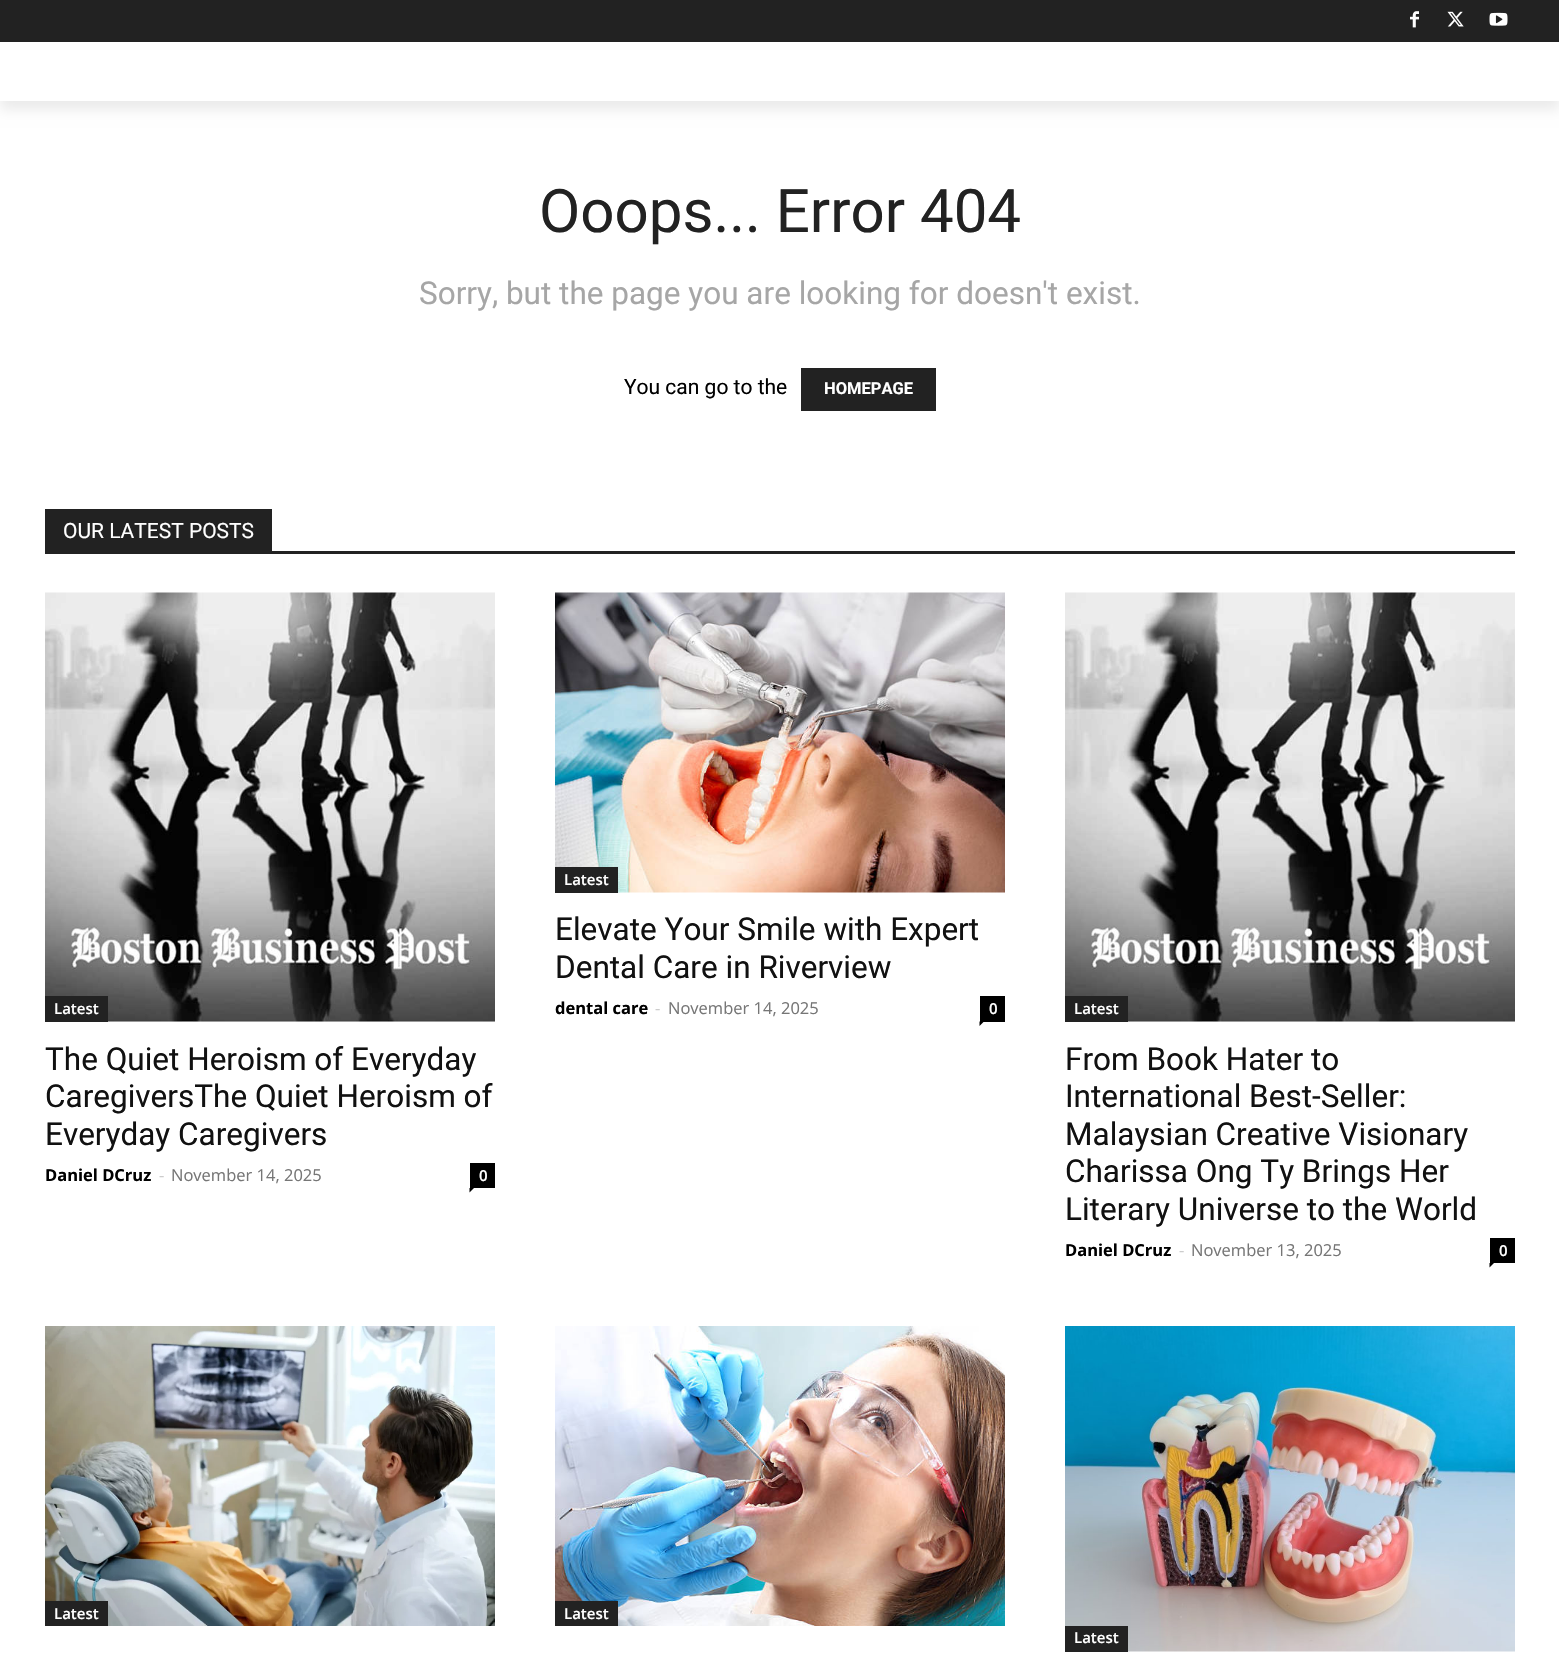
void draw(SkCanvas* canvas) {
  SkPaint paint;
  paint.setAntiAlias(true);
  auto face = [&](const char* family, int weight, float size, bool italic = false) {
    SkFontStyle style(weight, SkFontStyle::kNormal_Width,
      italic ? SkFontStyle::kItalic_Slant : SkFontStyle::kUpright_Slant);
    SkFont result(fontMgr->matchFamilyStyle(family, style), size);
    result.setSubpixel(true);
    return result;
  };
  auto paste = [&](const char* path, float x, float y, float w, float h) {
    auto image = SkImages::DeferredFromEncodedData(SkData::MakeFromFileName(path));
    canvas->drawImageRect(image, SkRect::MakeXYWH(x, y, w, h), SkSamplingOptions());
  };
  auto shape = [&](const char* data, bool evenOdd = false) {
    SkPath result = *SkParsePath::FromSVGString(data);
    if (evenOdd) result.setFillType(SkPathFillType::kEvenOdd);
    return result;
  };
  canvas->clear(0xffffffff);
  paint.setColor(0xff222222);
  canvas->drawRect(SkRect::MakeXYWH(0, 0, 1559, 42), paint);
  paste("img/1.png", 1410, 11, 9, 17);
  paste("img/2.png", 1447, 11, 17, 16);
  paste("img/3.png", 1489, 12, 19, 14);
  canvas->save();
  canvas->clipPath(shape("M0 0H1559V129H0ZM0 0H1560V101H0Z", true), true);
  paint.setColor(0x14000000);
  paint.setMaskFilter(SkMaskFilter::MakeBlur(kNormal_SkBlurStyle, 6));
  canvas->drawRect(SkRect::MakeXYWH(0, 9, 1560, 101), paint);
  paint.setMaskFilter(nullptr);
  canvas->restore();
  {
    const struct { float x, y, w, h; SkColor color; } items[] = {
      {801, 368, 135, 43, 0xff222222},
      {45, 551, 1470, 3, 0xff222222},
      {45, 509, 227, 42, 0xff222222},
    };
    for (auto [x, y, w, h, color] : items) {
      paint.setColor(color);
      canvas->drawRect(SkRect::MakeXYWH(x, y, w, h), paint);
    }
  }
  paste("img/4.png", 555, 592, 450, 301);
  canvas->drawRect(SkRect::MakeXYWH(555, 867, 63, 26), paint);
  paint.setColor(0xff000000);
  canvas->drawRect(SkRect::MakeXYWH(980, 996, 25, 26), paint);
  canvas->drawPath(shape("M979.5 1021.5H984L979.5 1026Z"), paint);
  paste("img/5.png", 45, 592, 450, 430);
  paint.setColor(0xff222222);
  canvas->drawRect(SkRect::MakeXYWH(45, 996, 63, 26), paint);
  paint.setColor(0xff000000);
  canvas->drawRect(SkRect::MakeXYWH(470, 1163, 25, 25), paint);
  canvas->drawPath(shape("M469.5 1188H474L469.5 1192.5Z"), paint);
  paste("img/5.png", 1065, 592, 450, 430);
  paint.setColor(0xff222222);
  canvas->drawRect(SkRect::MakeXYWH(1065, 996, 63, 26), paint);
  paint.setColor(0xff000000);
  canvas->drawRect(SkRect::MakeXYWH(1490, 1238, 25, 25), paint);
  canvas->drawPath(shape("M1489.5 1263H1494L1489.5 1267.5Z"), paint);
  paste("img/6.png", 45, 1326, 450, 300);
  paint.setColor(0xff222222);
  canvas->drawRect(SkRect::MakeXYWH(45, 1601, 63, 25), paint);
  paste("img/7.png", 555, 1326, 450, 300);
  canvas->drawRect(SkRect::MakeXYWH(555, 1601, 63, 25), paint);
  paste("img/8.png", 1065, 1326, 450, 326);
  canvas->drawRect(SkRect::MakeXYWH(1065, 1626, 63, 26), paint);
  auto f0 = face("Roboto", 400, 60);
  canvas->drawString("Ooops... Error 404", 539, 232, f0, paint);
  auto f1 = face("Roboto", 400, 31.5f);
  paint.setColor(0xffa6a6a6);
  canvas->drawString("Sorry, but the page you are looking for doesn't exist.", 419, 304, f1, paint);
  auto f2 = face("Roboto", 400, 21);
  paint.setColor(0xff000000);
  canvas->drawString("You can go to the", 624, 394, f2, paint);
  auto f3 = face("Roboto", 700, 16.5f);
  paint.setColor(0xffffffff);
  canvas->drawString("HOMEPAGE", 824, 394, f3, paint);
  canvas->drawString("OUR LATEST POSTS", 63, 538, f2, paint);
  auto f4 = face("Open Sans", 600, 15);
  canvas->drawString("Latest", 564, 885, f4, paint);
  paint.setColor(0xff111111);
  canvas->drawString("Elevate Your Smile with Expert", 555, 940, f1, paint);
  canvas->drawString("Dental Care in Riverview", 555, 978, f1, paint);
  auto f5 = face("Open Sans", 700, 16.5f);
  paint.setColor(0xff000000);
  canvas->drawString("dental care", 555, 1014, f5, paint);
  auto f6 = face("Open Sans", 400, 16.5f);
  paint.setColor(0xffcccccc);
  canvas->drawString("-", 655, 1014, f6, paint);
  paint.setColor(0xff767676);
  canvas->drawString("November 14, 2025", 668, 1014, f6, paint);
  paint.setColor(0xffffffff);
  canvas->drawString("0", 989, 1014, f4, paint);
  canvas->drawString("Latest", 54, 1014, f4, paint);
  paint.setColor(0xff111111);
  {
    const struct { const char* s; float x, y; } items[] = {
      {"The Quiet Heroism of Everyday", 45, 1070},
      {"CaregiversThe Quiet Heroism of", 45, 1107},
      {"Everyday Caregivers", 45, 1145},
    };
    for (auto [s, x, y] : items) {
      canvas->drawString(s, x, y, f1, paint);
    }
  }
  paint.setColor(0xff000000);
  canvas->drawString("Daniel DCruz", 45, 1181, f5, paint);
  paint.setColor(0xffcccccc);
  canvas->drawString("-", 159, 1181, f6, paint);
  paint.setColor(0xff767676);
  canvas->drawString("November 14, 2025", 171, 1181, f6, paint);
  paint.setColor(0xffffffff);
  canvas->drawString("0", 479, 1181, f4, paint);
  canvas->drawString("Latest", 1074, 1014, f4, paint);
  paint.setColor(0xff111111);
  {
    const struct { const char* s; float x, y; } items[] = {
      {"From Book Hater to", 1065, 1070},
      {"International Best-Seller:", 1065, 1107},
      {"Malaysian Creative Visionary", 1065, 1145},
      {"Charissa Ong Ty Brings Her", 1065, 1182},
      {"Literary Universe to the World", 1065, 1220},
    };
    for (auto [s, x, y] : items) {
      canvas->drawString(s, x, y, f1, paint);
    }
  }
  paint.setColor(0xff000000);
  canvas->drawString("Daniel DCruz", 1065, 1256, f5, paint);
  paint.setColor(0xffcccccc);
  canvas->drawString("-", 1179, 1256, f6, paint);
  paint.setColor(0xff767676);
  canvas->drawString("November 13, 2025", 1191, 1256, f6, paint);
  paint.setColor(0xffffffff);
  {
    const struct { const char* s; float x, y; } items[] = {
      {"0", 1499, 1256},
      {"Latest", 54, 1619},
      {"Latest", 564, 1619},
      {"Latest", 1074, 1643},
    };
    for (auto [s, x, y] : items) {
      canvas->drawString(s, x, y, f4, paint);
    }
  }
}
